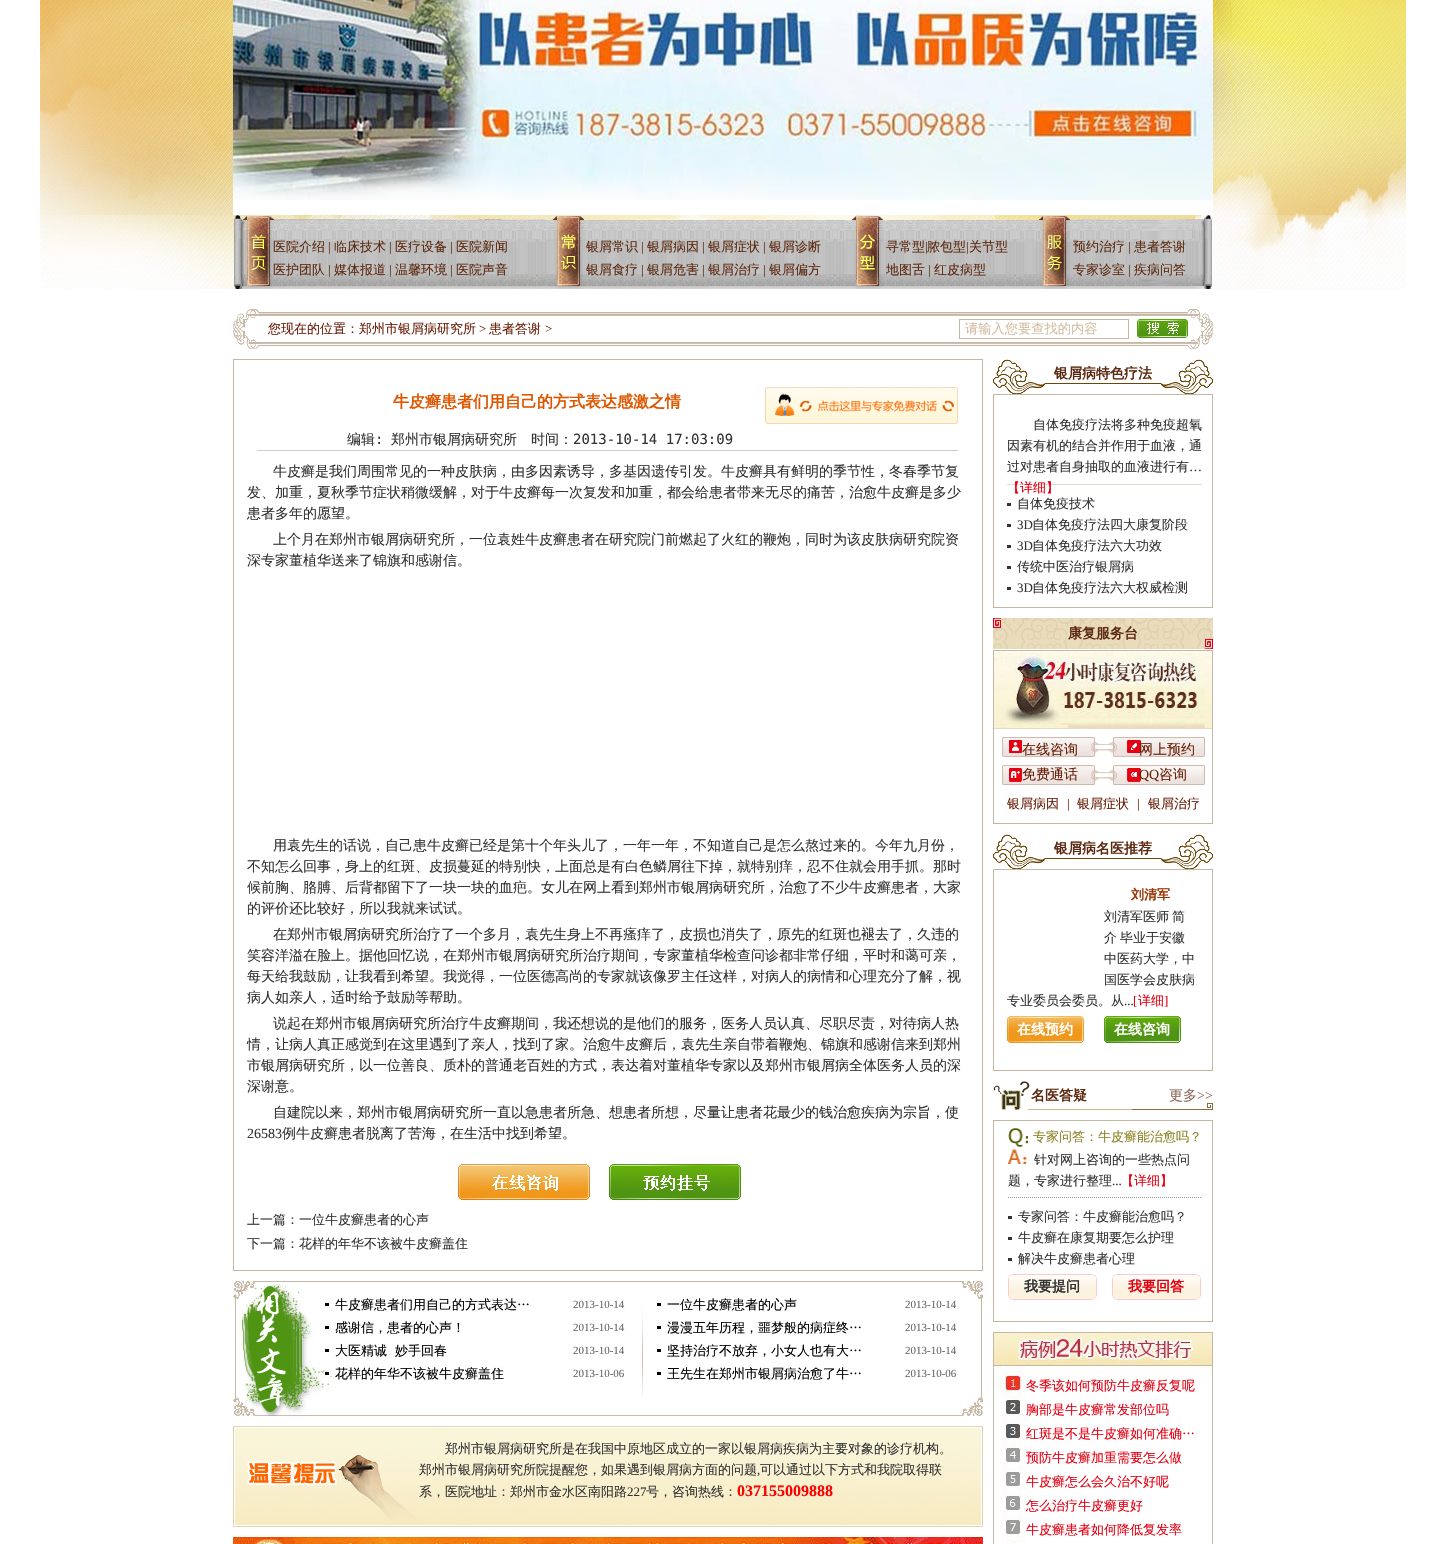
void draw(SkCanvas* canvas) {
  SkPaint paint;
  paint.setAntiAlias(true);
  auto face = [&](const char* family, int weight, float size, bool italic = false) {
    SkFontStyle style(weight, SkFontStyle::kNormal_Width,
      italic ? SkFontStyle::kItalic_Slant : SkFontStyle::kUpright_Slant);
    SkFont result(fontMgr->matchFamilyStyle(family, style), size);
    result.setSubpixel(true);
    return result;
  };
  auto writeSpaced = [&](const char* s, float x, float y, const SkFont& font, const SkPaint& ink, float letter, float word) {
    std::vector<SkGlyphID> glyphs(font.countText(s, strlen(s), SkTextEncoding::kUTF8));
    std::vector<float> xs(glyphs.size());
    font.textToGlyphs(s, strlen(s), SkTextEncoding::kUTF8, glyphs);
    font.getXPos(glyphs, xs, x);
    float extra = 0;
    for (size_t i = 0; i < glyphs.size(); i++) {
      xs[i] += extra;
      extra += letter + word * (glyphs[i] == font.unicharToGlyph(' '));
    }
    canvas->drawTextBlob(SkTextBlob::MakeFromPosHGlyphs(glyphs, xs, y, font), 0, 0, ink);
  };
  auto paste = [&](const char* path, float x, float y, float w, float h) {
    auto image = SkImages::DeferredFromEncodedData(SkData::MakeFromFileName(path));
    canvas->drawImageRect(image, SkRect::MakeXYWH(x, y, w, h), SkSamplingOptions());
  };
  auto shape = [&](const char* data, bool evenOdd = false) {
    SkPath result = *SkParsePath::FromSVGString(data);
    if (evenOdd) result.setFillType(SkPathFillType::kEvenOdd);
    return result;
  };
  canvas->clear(0xffffffff);
  paste("img/1.png", 40, 0, 1366, 215);
  paste("img/2.png", 233, 0, 980, 56);
  paste("img/3.png", 233, 56, 980, 159);
  paste("img/4.png", 40, 215, 1366, 74);
  paste("img/5.png", 233, 309, 980, 40);
  paint.setStroke(true);
  paint.setStrokeWidth(1);
  paint.setColor(0xffc6b7a4);
  canvas->drawRect(SkRect::MakeXYWH(959.5f, 319.5f, 169, 19), paint);
  paste("img/6.png", 1137, 319, 51, 19);
  canvas->drawRect(SkRect::MakeXYWH(233.5f, 359.5f, 749, 911), paint);
  paste("img/7.png", 765, 387, 193, 37);
  paint.setStroke(false);
  paint.setColor(0xffcccccc);
  canvas->drawRect(SkRect::MakeXYWH(257, 450, 701, 1), paint);
  paste("img/8.png", 458, 1164, 132, 36);
  paste("img/9.png", 609, 1164, 132, 36);
  paste("img/10.png", 233, 1281, 750, 135);
  {
    const struct { float x, y, w, h; SkColor color; } items[] = {
      {325, 1303, 4, 3, 0xff000000},
      {657, 1303, 4, 3, 0xff000000},
      {325, 1326, 4, 3, 0xff000000},
      {657, 1326, 4, 3, 0xff000000},
      {325, 1349, 4, 3, 0xff000000},
      {657, 1349, 4, 3, 0xff000000},
      {325, 1372, 4, 3, 0xff000000},
      {657, 1372, 4, 3, 0xff000000},
    };
    for (auto [x, y, w, h, color] : items) {
      paint.setColor(color);
      canvas->drawRect(SkRect::MakeXYWH(x, y, w, h), paint);
    }
  }
  paste("img/11.png", 233, 1426, 750, 101);
  paste("img/12.png", 233, 1537, 750, 7);
  paste("img/13.png", 993, 359, 220, 35);
  paint.setStroke(true);
  paint.setColor(0xffc6b7a4);
  canvas->drawRect(SkRect::MakeXYWH(993.5f, 394.5f, 219, 213), paint);
  paint.setStroke(false);
  {
    const struct { float x, y, w, h; SkColor color; } items[] = {
      {1007, 484, 195, 1, 0xffe2dbd1},
      {1007, 503, 4, 3, 0xff333333},
      {1007, 524, 4, 3, 0xff333333},
      {1007, 545, 4, 3, 0xff333333},
      {1007, 566, 4, 3, 0xff333333},
      {1007, 587, 4, 3, 0xff333333},
    };
    for (auto [x, y, w, h, color] : items) {
      paint.setColor(color);
      canvas->drawRect(SkRect::MakeXYWH(x, y, w, h), paint);
    }
  }
  paste("img/14.png", 993, 618, 220, 31);
  paint.setStroke(true);
  paint.setColor(0xffc6b7a4);
  canvas->drawRect(SkRect::MakeXYWH(993.5f, 650.5f, 219, 173), paint);
  paste("img/15.png", 994, 651, 218, 78);
  paste("img/16.png", 1002, 737, 203, 48);
  paste("img/13.png", 993, 834, 220, 35);
  canvas->drawRect(SkRect::MakeXYWH(993.5f, 869.5f, 219, 201), paint);
  paste("img/17.png", 1007, 1016, 77, 27);
  paste("img/18.png", 1104, 1016, 77, 27);
  paste("img/19.png", 993, 1081, 220, 29);
  canvas->drawRect(SkRect::MakeXYWH(993.5f, 1120.5f, 219, 201), paint);
  paste("img/20.png", 1008, 1128, 20, 19);
  paste("img/21.png", 1008, 1149, 19, 15);
  paint.setColor(0xff999999);
  paint.setPathEffect(SkDashPathEffect::Make({{1, 1}}, 0));
  canvas->drawPath(shape("M1008 1197.5H1202"), paint);
  paint.setPathEffect(nullptr);
  paint.setStroke(false);
  {
    const struct { float x, y, w, h; SkColor color; } items[] = {
      {1008, 1216, 4, 3, 0xff333333},
      {1008, 1237, 4, 3, 0xff333333},
      {1008, 1258, 4, 3, 0xff333333},
    };
    for (auto [x, y, w, h, color] : items) {
      paint.setColor(color);
      canvas->drawRect(SkRect::MakeXYWH(x, y, w, h), paint);
    }
  }
  paste("img/22.png", 1008, 1274, 89, 26);
  paste("img/22.png", 1112, 1274, 89, 26);
  paste("img/23.png", 993, 1332, 220, 212);
  auto f0 = face("WenQuanYi Zen Hei", 500, 13);
  paint.setColor(0xff5d2a11);
  canvas->drawString("医院介绍", 273, 251, f0, paint);
  auto f1 = face("Liberation Serif", 400, 13);
  canvas->drawString("|", 328, 251, f1, paint);
  canvas->drawString("临床技术", 334, 251, f0, paint);
  canvas->drawString("|", 389, 251, f1, paint);
  canvas->drawString("医疗设备", 395, 251, f0, paint);
  canvas->drawString("|", 450, 251, f1, paint);
  canvas->drawString("医院新闻", 456, 251, f0, paint);
  canvas->drawString("医护团队", 273, 274, f0, paint);
  canvas->drawString("|", 328, 274, f1, paint);
  canvas->drawString("媒体报道", 334, 274, f0, paint);
  canvas->drawString("|", 389, 274, f1, paint);
  canvas->drawString("温馨环境", 395, 274, f0, paint);
  canvas->drawString("|", 450, 274, f1, paint);
  canvas->drawString("医院声音", 456, 274, f0, paint);
  canvas->drawString("银屑常识", 586, 251, f0, paint);
  canvas->drawString("|", 641, 251, f1, paint);
  canvas->drawString("银屑病因", 647, 251, f0, paint);
  canvas->drawString("|", 702, 251, f1, paint);
  canvas->drawString("银屑症状", 708, 251, f0, paint);
  canvas->drawString("|", 763, 251, f1, paint);
  canvas->drawString("银屑诊断", 769, 251, f0, paint);
  canvas->drawString("银屑食疗", 586, 274, f0, paint);
  canvas->drawString("|", 641, 274, f1, paint);
  canvas->drawString("银屑危害", 647, 274, f0, paint);
  canvas->drawString("|", 702, 274, f1, paint);
  canvas->drawString("银屑治疗", 708, 274, f0, paint);
  canvas->drawString("|", 763, 274, f1, paint);
  canvas->drawString("银屑偏方", 769, 274, f0, paint);
  canvas->drawString("寻常型", 886, 251, f0, paint);
  canvas->drawString("|", 925, 251, f1, paint);
  canvas->drawString("脓包型", 927, 251, f0, paint);
  canvas->drawString("|", 966, 251, f1, paint);
  canvas->drawString("关节型", 969, 251, f0, paint);
  canvas->drawString("地图舌", 886, 274, f0, paint);
  canvas->drawString("|", 928, 274, f1, paint);
  canvas->drawString("红皮病型", 934, 274, f0, paint);
  canvas->drawString("预约治疗", 1073, 251, f0, paint);
  canvas->drawString("|", 1128, 251, f1, paint);
  canvas->drawString("患者答谢", 1134, 251, f0, paint);
  canvas->drawString("专家诊室", 1073, 274, f0, paint);
  canvas->drawString("|", 1128, 274, f1, paint);
  canvas->drawString("疾病问答", 1134, 274, f0, paint);
  paint.setColor(0xff691f08);
  canvas->drawString("您现在的位置：郑州市银屑病研究所", 268, 333, f0, paint);
  canvas->drawString(">", 479, 333, f1, paint);
  canvas->drawString("患者答谢", 489, 333, f0, paint);
  canvas->drawString(">", 545, 333, f1, paint);
  auto f2 = face("WenQuanYi Zen Hei", 500, 13.25f);
  paint.setColor(0xffd4bea3);
  canvas->drawString("请输入您要查找的内容", 965, 333, f2, paint);
  auto f3 = face("WenQuanYi Zen Hei", 700, 16);
  paint.setColor(0xffde5700);
  canvas->drawString("牛皮癣患者们用自己的方式表达感激之情", 393, 407, f3, paint);
  auto f4 = face("WenQuanYi Zen Hei", 500, 14);
  paint.setColor(0xff333333);
  canvas->drawString("编辑", 347, 444, f4, paint);
  auto f5 = face("DejaVu Sans Mono", 400, 14);
  canvas->drawString(":", 375, 444, f5, paint);
  canvas->drawString("郑州市银屑病研究所", 391, 444, f4, paint);
  canvas->drawString("时间：", 531, 444, f4, paint);
  canvas->drawString("2013-10-14 17:03:09", 573, 444, f5, paint);
  {
    const struct { const char* s; float x, y; } items[] = {
      {"牛皮癣是我们周围常见的一种皮肤病，由多因素诱导，多基因遗传引发。牛皮癣具有鲜明的季节性，冬春季节复", 273, 476},
      {"发、加重，夏秋季节症状稍微缓解，对于牛皮癣每一次复发和加重，都会给患者带来无尽的痛苦，治愈牛皮癣是多少", 247, 497},
      {"患者多年的愿望。", 247, 518},
      {"上个月在郑州市银屑病研究所，一位袁姓牛皮癣患者在研究院门前燃起了火红的鞭炮，同时为该皮肤病研究院资", 273, 544},
      {"深专家董植华送来了锦旗和感谢信。", 247, 565},
      {"用袁先生的话说，自己患牛皮癣已经是第十个年头儿了，一年一年，不知道自己是怎么熬过来的。今年九月份，", 273, 850},
      {"不知怎么回事，身上的红斑、皮损蔓延的特别快，上面总是有白色鳞屑往下掉，就特别痒，忍不住就会用手抓。那时", 247, 871},
      {"候前胸、胳膊、后背都留下了一块一块的血疤。女儿在网上看到郑州市银屑病研究所，治愈了不少牛皮癣患者，大家", 247, 892},
      {"的评价还比较好，所以我就来试试。", 247, 913},
      {"在郑州市银屑病研究所治疗了一个多月，袁先生身上不再瘙痒了，皮损也消失了，原先的红斑也褪去了，久违的", 273, 939},
      {"笑容洋溢在脸上。据他回忆说，在郑州市银屑病研究所治疗期间，专家董植华检查问诊都非常仔细，平时和蔼可亲，", 247, 960},
      {"每天给我鼓励，让我看到希望。我觉得，一位医德高尚的专家就该像罗主任这样，对病人的病情和心理充分了解，视", 247, 981},
      {"病人如亲人，适时给予鼓励等帮助。", 247, 1002},
      {"说起在郑州市银屑病研究所治疗牛皮癣期间，我还想说的是他们的服务，医务人员认真、尽职尽责，对待病人热", 273, 1028},
      {"情，让病人真正感觉到在这里遇到了亲人，找到了家。治愈牛皮癣后，袁先生亲自带着鞭炮、锦旗和感谢信来到郑州", 247, 1049},
      {"市银屑病研究所，以一位善良、质朴的普通老百姓的方式，表达着对董植华专家以及郑州市银屑病全体医务人员的深", 247, 1070},
      {"深谢意。", 247, 1091},
      {"自建院以来，郑州市银屑病研究所一直以急患者所急、想患者所想，尽量让患者花最少的钱治愈疾病为宗旨，使", 273, 1117},
    };
    for (auto [s, x, y] : items) {
      canvas->drawString(s, x, y, f4, paint);
    }
  }
  auto f6 = face("Liberation Serif", 400, 14);
  canvas->drawString("26583", 247, 1138, f6, paint);
  canvas->drawString("例牛皮癣患者脱离了苦海，在生活中找到希望。", 282, 1138, f4, paint);
  canvas->drawString("上一篇：一位牛皮癣患者的心声", 247, 1224, f0, paint);
  canvas->drawString("下一篇：花样的年华不该被牛皮癣盖住", 247, 1248, f0, paint);
  paint.setColor(0xff000000);
  canvas->drawString("牛皮癣患者们用自己的方式表达…", 335, 1309, f0, paint);
  auto f7 = face("Liberation Serif", 400, 11);
  paint.setColor(0xff666666);
  canvas->drawString("2013-10-14", 573, 1308, f7, paint);
  paint.setColor(0xff000000);
  canvas->drawString("一位牛皮癣患者的心声", 667, 1309, f0, paint);
  paint.setColor(0xff666666);
  canvas->drawString("2013-10-14", 905, 1308, f7, paint);
  paint.setColor(0xff000000);
  canvas->drawString("感谢信，患者的心声！", 335, 1332, f0, paint);
  paint.setColor(0xff666666);
  canvas->drawString("2013-10-14", 573, 1331, f7, paint);
  paint.setColor(0xff000000);
  canvas->drawString("漫漫五年历程，噩梦般的病症终…", 667, 1332, f0, paint);
  paint.setColor(0xff666666);
  canvas->drawString("2013-10-14", 905, 1331, f7, paint);
  paint.setColor(0xff000000);
  writeSpaced("大医精诚 妙手回春", 335, 1355, f0, paint, 0, 4);
  paint.setColor(0xff666666);
  canvas->drawString("2013-10-14", 573, 1354, f7, paint);
  paint.setColor(0xff000000);
  canvas->drawString("坚持治疗不放弃，小女人也有大…", 667, 1355, f0, paint);
  paint.setColor(0xff666666);
  canvas->drawString("2013-10-14", 905, 1354, f7, paint);
  paint.setColor(0xff000000);
  canvas->drawString("花样的年华不该被牛皮癣盖住", 335, 1378, f0, paint);
  paint.setColor(0xff666666);
  canvas->drawString("2013-10-06", 573, 1377, f7, paint);
  paint.setColor(0xff000000);
  canvas->drawString("王先生在郑州市银屑病治愈了牛…", 667, 1378, f0, paint);
  paint.setColor(0xff666666);
  canvas->drawString("2013-10-06", 905, 1377, f7, paint);
  paint.setColor(0xff333333);
  canvas->drawString("郑州市银屑病研究所是在我国中原地区成立的一家以银屑病疾病为主要对象的诊疗机构。", 445, 1453, f0, paint);
  canvas->drawString("郑州市银屑病研究所院提醒您，如果遇到银屑病方面的问题", 419, 1474, f0, paint);
  canvas->drawString(",", 757, 1474, f1, paint);
  canvas->drawString("可以通过以下方式和我院取得联", 760, 1474, f0, paint);
  canvas->drawString("系，医院地址：郑州市金水区南阳路", 419, 1496, f0, paint);
  canvas->drawString("227", 627, 1496, f1, paint);
  canvas->drawString("号，咨询热线：", 646, 1496, f0, paint);
  auto f8 = face("Liberation Serif", 700, 16);
  paint.setColor(0xffff0000);
  canvas->drawString("037155009888", 737, 1496, f8, paint);
  auto f9 = face("WenQuanYi Zen Hei", 700, 14);
  paint.setColor(0xff5d2a11);
  canvas->drawString("银屑病特色疗法", 1054, 378, f9, paint);
  paint.setColor(0xff333333);
  {
    const struct { const char* s; float x, y; } items[] = {
      {"自体免疫疗法将多种免疫超氧", 1033, 429},
      {"因素有机的结合并作用于血液，通", 1007, 450},
      {"过对患者自身抽取的血液进行有", 1007, 471},
    };
    for (auto [s, x, y] : items) {
      canvas->drawString(s, x, y, f0, paint);
    }
  }
  canvas->drawString("…", 1189, 471, f1, paint);
  paint.setColor(0xffe60012);
  canvas->drawString("【详细】", 1007, 492, f0, paint);
  paint.setColor(0xff333333);
  canvas->drawString("自体免疫技术", 1017, 508, f0, paint);
  canvas->drawString("3D", 1017, 529, f1, paint);
  canvas->drawString("自体免疫疗法四大康复阶段", 1032, 529, f0, paint);
  canvas->drawString("3D", 1017, 550, f1, paint);
  canvas->drawString("自体免疫疗法六大功效", 1032, 550, f0, paint);
  canvas->drawString("传统中医治疗银屑病", 1017, 571, f0, paint);
  canvas->drawString("3D", 1017, 592, f1, paint);
  canvas->drawString("自体免疫疗法六大权威检测", 1032, 592, f0, paint);
  paint.setColor(0xff5d2a11);
  canvas->drawString("康复服务台", 1068, 638, f9, paint);
  paint.setColor(0xff691f08);
  {
    const struct { const char* s; float x, y; } items[] = {
      {"在线咨询", 1022, 754},
      {"网上预约", 1139, 754},
      {"免费通话", 1022, 779},
    };
    for (auto [s, x, y] : items) {
      canvas->drawString(s, x, y, f4, paint);
    }
  }
  canvas->drawString("QQ", 1139, 779, f6, paint);
  canvas->drawString("咨询", 1159, 779, f4, paint);
  canvas->drawString("银屑病因", 1007, 808, f0, paint);
  canvas->drawString("|", 1067, 808, f1, paint);
  canvas->drawString("银屑症状", 1077, 808, f0, paint);
  canvas->drawString("|", 1137, 808, f1, paint);
  canvas->drawString("银屑治疗", 1148, 808, f0, paint);
  paint.setColor(0xff5d2a11);
  canvas->drawString("银屑病名医推荐", 1054, 853, f9, paint);
  auto f10 = face("WenQuanYi Zen Hei", 700, 13);
  paint.setColor(0xff993300);
  canvas->drawString("刘清军", 1131, 899, f10, paint);
  paint.setColor(0xff333333);
  writeSpaced("刘清军医师 简", 1104, 921, f0, paint, 0, -1);
  writeSpaced("介 毕业于安徽", 1104, 942, f0, paint, 0, -1);
  {
    const struct { const char* s; float x, y; } items[] = {
      {"中医药大学，中", 1104, 963},
      {"国医学会皮肤病", 1104, 984},
      {"专业委员会委员。从", 1007, 1005},
    };
    for (auto [s, x, y] : items) {
      canvas->drawString(s, x, y, f0, paint);
    }
  }
  canvas->drawString("...", 1124, 1005, f1, paint);
  paint.setColor(0xffe60012);
  canvas->drawString("[", 1133, 1005, f1, paint);
  canvas->drawString("详细", 1138, 1005, f0, paint);
  canvas->drawString("]", 1164, 1005, f1, paint);
  paint.setColor(0xffffffff);
  canvas->drawString("在线预约", 1017, 1034, f9, paint);
  canvas->drawString("在线咨询", 1114, 1034, f9, paint);
  paint.setColor(0xff5d2a11);
  canvas->drawString("名医答疑", 1031, 1100, f9, paint);
  paint.setColor(0xff8d6958);
  canvas->drawString("更多", 1169, 1100, f4, paint);
  canvas->drawString(">>", 1197, 1100, f6, paint);
  paint.setColor(0xff8d8223);
  canvas->drawString("专家问答：牛皮癣能治愈吗？", 1033, 1141, f0, paint);
  paint.setColor(0xff333333);
  canvas->drawString("针对网上咨询的一些热点问", 1034, 1164, f0, paint);
  canvas->drawString("题，专家进行整理", 1008, 1185, f0, paint);
  canvas->drawString("...", 1112, 1185, f1, paint);
  paint.setColor(0xffe60012);
  canvas->drawString("【详细】", 1121, 1185, f0, paint);
  paint.setColor(0xff333333);
  {
    const struct { const char* s; float x, y; } items[] = {
      {"专家问答：牛皮癣能治愈吗？", 1018, 1221},
      {"牛皮癣在康复期要怎么护理", 1018, 1242},
      {"解决牛皮癣患者心理", 1018, 1263},
    };
    for (auto [s, x, y] : items) {
      canvas->drawString(s, x, y, f0, paint);
    }
  }
  canvas->drawString("我要提问", 1024, 1291, f9, paint);
  paint.setColor(0xffe60012);
  canvas->drawString("我要回答", 1128, 1291, f9, paint);
  canvas->drawString("冬季该如何预防牛皮癣反复呢", 1026, 1390, f0, paint);
  canvas->drawString("胸部是牛皮癣常发部位吗", 1026, 1414, f0, paint);
  canvas->save();
  canvas->clipRect(SkRect::MakeXYWH(1026, 1422, 169, 24));
  canvas->drawString("红斑是不是牛皮癣如何准确…", 1026, 1438, f0, paint);
  canvas->restore();
  canvas->save();
  canvas->clipRect(SkRect::MakeXYWH(1026, 1446, 169, 24));
  canvas->drawString("预防牛皮癣加重需要怎么做", 1026, 1462, f0, paint);
  canvas->restore();
  canvas->drawString("牛皮癣怎么会久治不好呢", 1026, 1486, f0, paint);
  canvas->save();
  canvas->clipRect(SkRect::MakeXYWH(1026, 1494, 169, 24));
  canvas->drawString("怎么治疗牛皮癣更好", 1026, 1510, f0, paint);
  canvas->restore();
  canvas->drawString("牛皮癣患者如何降低复发率", 1026, 1534, f0, paint);
}
